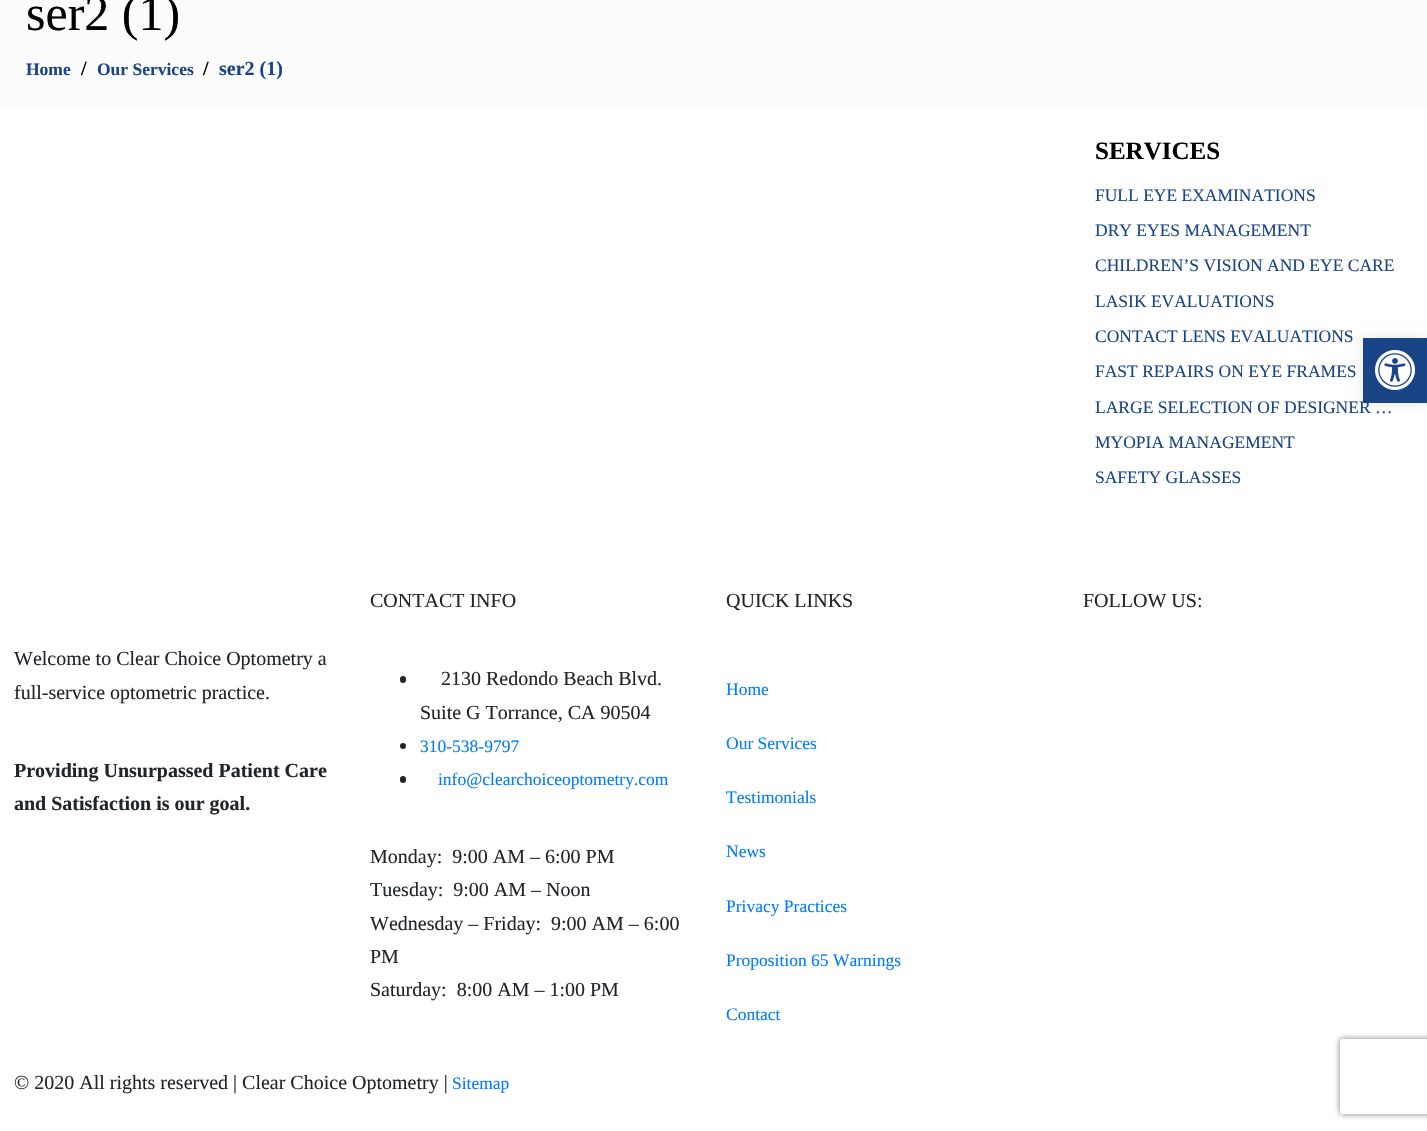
void draw(SkCanvas* canvas) {
  SkPaint paint;
  paint.setAntiAlias(true);
  auto face = [&](const char* family, int weight, float size, bool italic = false) {
    SkFontStyle style(weight, SkFontStyle::kNormal_Width,
      italic ? SkFontStyle::kItalic_Slant : SkFontStyle::kUpright_Slant);
    SkFont result(fontMgr->matchFamilyStyle(family, style), size);
    result.setSubpixel(true);
    return result;
  };
  auto paste = [&](const char* path, float x, float y, float w, float h) {
    auto image = SkImages::DeferredFromEncodedData(SkData::MakeFromFileName(path));
    canvas->drawImageRect(image, SkRect::MakeXYWH(x, y, w, h), SkSamplingOptions());
  };
  auto shape = [&](const char* data, bool evenOdd = false) {
    SkPath result = *SkParsePath::FromSVGString(data);
    if (evenOdd) result.setFillType(SkPathFillType::kEvenOdd);
    return result;
  };
  canvas->clear(0xffffffff);
  paint.setColor(0xfffcfcfd);
  canvas->drawRect(SkRect::MakeXYWH(0, 0, 1427, 106), paint);
  paint.setColor(0xff212529);
  canvas->drawRoundRect(SkRect::MakeXYWH(400, 676, 6, 7), 3, 3, paint);
  canvas->drawCircle(403, 746, 3, paint);
  canvas->drawRoundRect(SkRect::MakeXYWH(400, 776, 6, 7), 3, 3, paint);
  paint.setColor(0x1a000000);
  paint.setMaskFilter(SkMaskFilter::MakeBlur(kNormal_SkBlurStyle, 6));
  canvas->drawRect(SkRect::MakeXYWH(1363, 338, 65, 65), paint);
  paint.setMaskFilter(nullptr);
  paint.setColor(0xff194586);
  canvas->drawRect(SkRect::MakeXYWH(1363, 338, 64, 65), paint);
  paste("img/1.png", 1375, 350, 40, 40);
  canvas->save();
  canvas->clipPath(shape("M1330 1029H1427V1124H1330ZM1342.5 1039H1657.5C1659 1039 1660 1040 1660 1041.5V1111.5C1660 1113 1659 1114 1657.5 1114H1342.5C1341 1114 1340 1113 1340 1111.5V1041.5C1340 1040 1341 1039 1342.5 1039Z", true), true);
  paint.setColor(0xff808080);
  paint.setMaskFilter(SkMaskFilter::MakeBlur(kNormal_SkBlurStyle, 3));
  canvas->drawRoundRect(SkRect::MakeXYWH(1340, 1039, 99, 75), 2.5f, 2.5f, paint);
  paint.setMaskFilter(nullptr);
  canvas->restore();
  auto f0 = face("Liberation Serif", 400, 50);
  paint.setColor(0xff000000);
  canvas->drawString("ser2 (1)", 26, 30, f0, paint);
  auto f1 = face("Liberation Serif", 700, 17.5f);
  paint.setColor(0xff194586);
  canvas->drawString("Home", 26, 75, f1, paint);
  auto f2 = face("Liberation Serif", 700, 20);
  paint.setColor(0xff000000);
  canvas->drawString("/", 81, 75, f2, paint);
  paint.setColor(0xff194586);
  canvas->drawString("Our Services", 97, 75, f1, paint);
  paint.setColor(0xff000000);
  canvas->drawString("/", 203, 75, f2, paint);
  paint.setColor(0xff194586);
  canvas->drawString("ser2 (1)", 219, 75, f2, paint);
  auto f3 = face("Liberation Serif", 700, 25);
  paint.setColor(0xff000000);
  canvas->drawString("SERVICES", 1095, 159, f3, paint);
  auto f4 = face("Liberation Serif", 400, 17.5f);
  paint.setColor(0xff194586);
  {
    const struct { const char* s; float x, y; } items[] = {
      {"FULL EYE EXAMINATIONS", 1095, 201},
      {"DRY EYES MANAGEMENT", 1095, 236},
      {"CHILDREN’S VISION AND EYE CARE", 1095, 271},
      {"LASIK EVALUATIONS", 1095, 307},
      {"CONTACT LENS EVALUATIONS", 1095, 342},
      {"FAST REPAIRS ON EYE FRAMES", 1095, 377},
      {"LARGE SELECTION OF DESIGNER …", 1095, 413},
      {"MYOPIA MANAGEMENT", 1095, 448},
      {"SAFETY GLASSES", 1095, 483},
    };
    for (auto [s, x, y] : items) {
      canvas->drawString(s, x, y, f4, paint);
    }
  }
  auto f5 = face("Liberation Serif", 400, 20);
  paint.setColor(0xff212529);
  {
    const struct { const char* s; float x, y; } items[] = {
      {"CONTACT INFO", 370, 607},
      {"2130 Redondo Beach Blvd.", 441, 685},
      {"Suite G Torrance, CA 90504", 420, 719},
    };
    for (auto [s, x, y] : items) {
      canvas->drawString(s, x, y, f5, paint);
    }
  }
  paint.setColor(0xff007bff);
  canvas->drawString("310-538-9797", 420, 752, f4, paint);
  canvas->drawString("info@clearchoiceoptometry.com", 438, 785, f4, paint);
  paint.setColor(0xff212529);
  {
    const struct { const char* s; float x, y; } items[] = {
      {"Monday:  9:00 AM – 6:00 PM", 370, 863},
      {"Tuesday:  9:00 AM – Noon", 370, 896},
      {"Wednesday – Friday:  9:00 AM – 6:00", 370, 930},
      {"PM", 370, 963},
      {"Saturday:  8:00 AM – 1:00 PM", 370, 996},
      {"QUICK LINKS", 726, 607},
    };
    for (auto [s, x, y] : items) {
      canvas->drawString(s, x, y, f5, paint);
    }
  }
  paint.setColor(0xff007bff);
  {
    const struct { const char* s; float x, y; } items[] = {
      {"Home", 726, 695},
      {"Our Services", 726, 749},
      {"Testimonials", 726, 803},
      {"News", 726, 857},
      {"Privacy Practices", 726, 912},
      {"Proposition 65 Warnings", 726, 966},
      {"Contact", 726, 1020},
    };
    for (auto [s, x, y] : items) {
      canvas->drawString(s, x, y, f4, paint);
    }
  }
  paint.setColor(0xff212529);
  {
    const struct { const char* s; float x, y; } items[] = {
      {"FOLLOW US:", 1083, 607},
      {"Welcome to Clear Choice Optometry a", 14, 665},
      {"full-service optometric practice.", 14, 699},
    };
    for (auto [s, x, y] : items) {
      canvas->drawString(s, x, y, f5, paint);
    }
  }
  canvas->drawString("Providing Unsurpassed Patient Care", 14, 777, f2, paint);
  canvas->drawString("and Satisfaction is our goal.", 14, 810, f2, paint);
  canvas->drawString("© 2020 All rights reserved | Clear Choice Optometry |", 14, 1089, f5, paint);
  paint.setColor(0xff007bff);
  canvas->drawString("Sitemap", 452, 1089, f4, paint);
}
